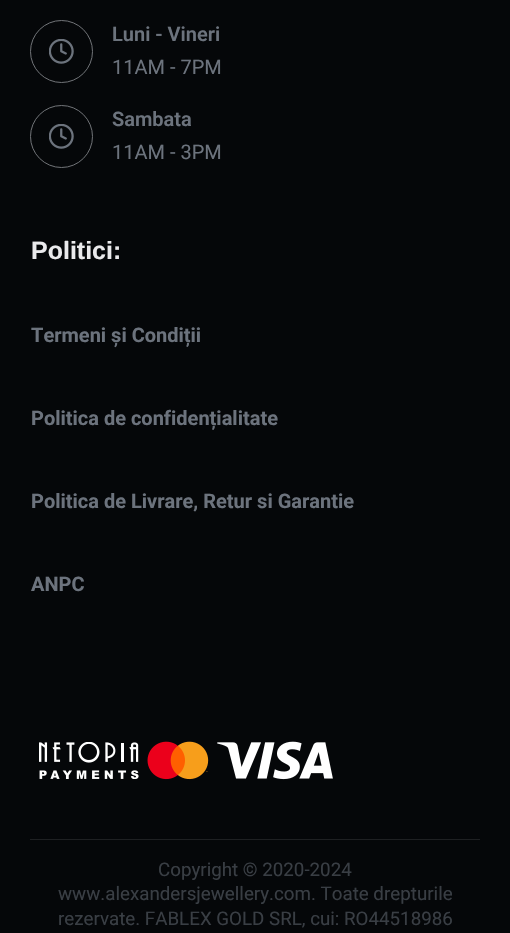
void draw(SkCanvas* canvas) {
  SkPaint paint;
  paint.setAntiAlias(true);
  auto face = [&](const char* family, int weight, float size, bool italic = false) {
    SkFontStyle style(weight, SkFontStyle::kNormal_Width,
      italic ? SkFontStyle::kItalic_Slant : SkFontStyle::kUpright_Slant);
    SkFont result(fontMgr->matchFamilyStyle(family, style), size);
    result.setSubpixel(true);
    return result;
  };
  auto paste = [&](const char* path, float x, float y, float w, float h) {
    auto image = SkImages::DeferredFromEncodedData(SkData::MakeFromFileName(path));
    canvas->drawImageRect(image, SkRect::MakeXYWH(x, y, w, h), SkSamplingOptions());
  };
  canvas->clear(0xff050709);
  paint.setStroke(true);
  paint.setStrokeWidth(1);
  paint.setColor(0xff707377);
  canvas->drawCircle(61.5f, 51.5f, 31, paint);
  paste("img/1.png", 49, 39, 25, 25);
  canvas->drawCircle(61.5f, 136.5f, 31, paint);
  paste("img/1.png", 49, 124, 25, 25);
  paste("img/2.png", 39, 741, 294, 39);
  paint.setStroke(false);
  paint.setColor(0xff1e2022);
  canvas->drawRect(SkRect::MakeXYWH(30, 839, 450, 1), paint);
  auto f0 = face("Roboto", 600, 20);
  paint.setColor(0xff6c737d);
  canvas->drawString("Luni - Vineri", 112, 41, f0, paint);
  auto f1 = face("Roboto", 400, 20);
  canvas->drawString("11AM - 7PM", 112, 74, f1, paint);
  canvas->drawString("Sambata", 112, 126, f0, paint);
  canvas->drawString("11AM - 3PM", 112, 159, f1, paint);
  auto f2 = face("Liberation Sans", 700, 25);
  paint.setColor(0xffeaeaec);
  canvas->drawString("Politici:", 31, 259, f2, paint);
  auto f3 = face("Roboto", 700, 20);
  paint.setColor(0xff6c737d);
  {
    const struct { const char* s; float x, y; } items[] = {
      {"Termeni și Condiții", 31, 342},
      {"Politica de confidențialitate", 31, 425},
      {"Politica de Livrare, Retur si Garantie", 31, 508},
      {"ANPC", 31, 591},
    };
    for (auto [s, x, y] : items) {
      canvas->drawString(s, x, y, f3, paint);
    }
  }
  auto f4 = face("Roboto", 400, 18.75f);
  paint.setColor(0xff393e44);
  {
    const struct { const char* s; float x, y; } items[] = {
      {"Copyright © 2020-2024", 158, 876},
      {"www.alexandersjewellery.com. Toate drepturile", 58, 900},
      {"rezervate. FABLEX GOLD SRL, cui: RO44518986", 58, 925},
    };
    for (auto [s, x, y] : items) {
      canvas->drawString(s, x, y, f4, paint);
    }
  }
}
